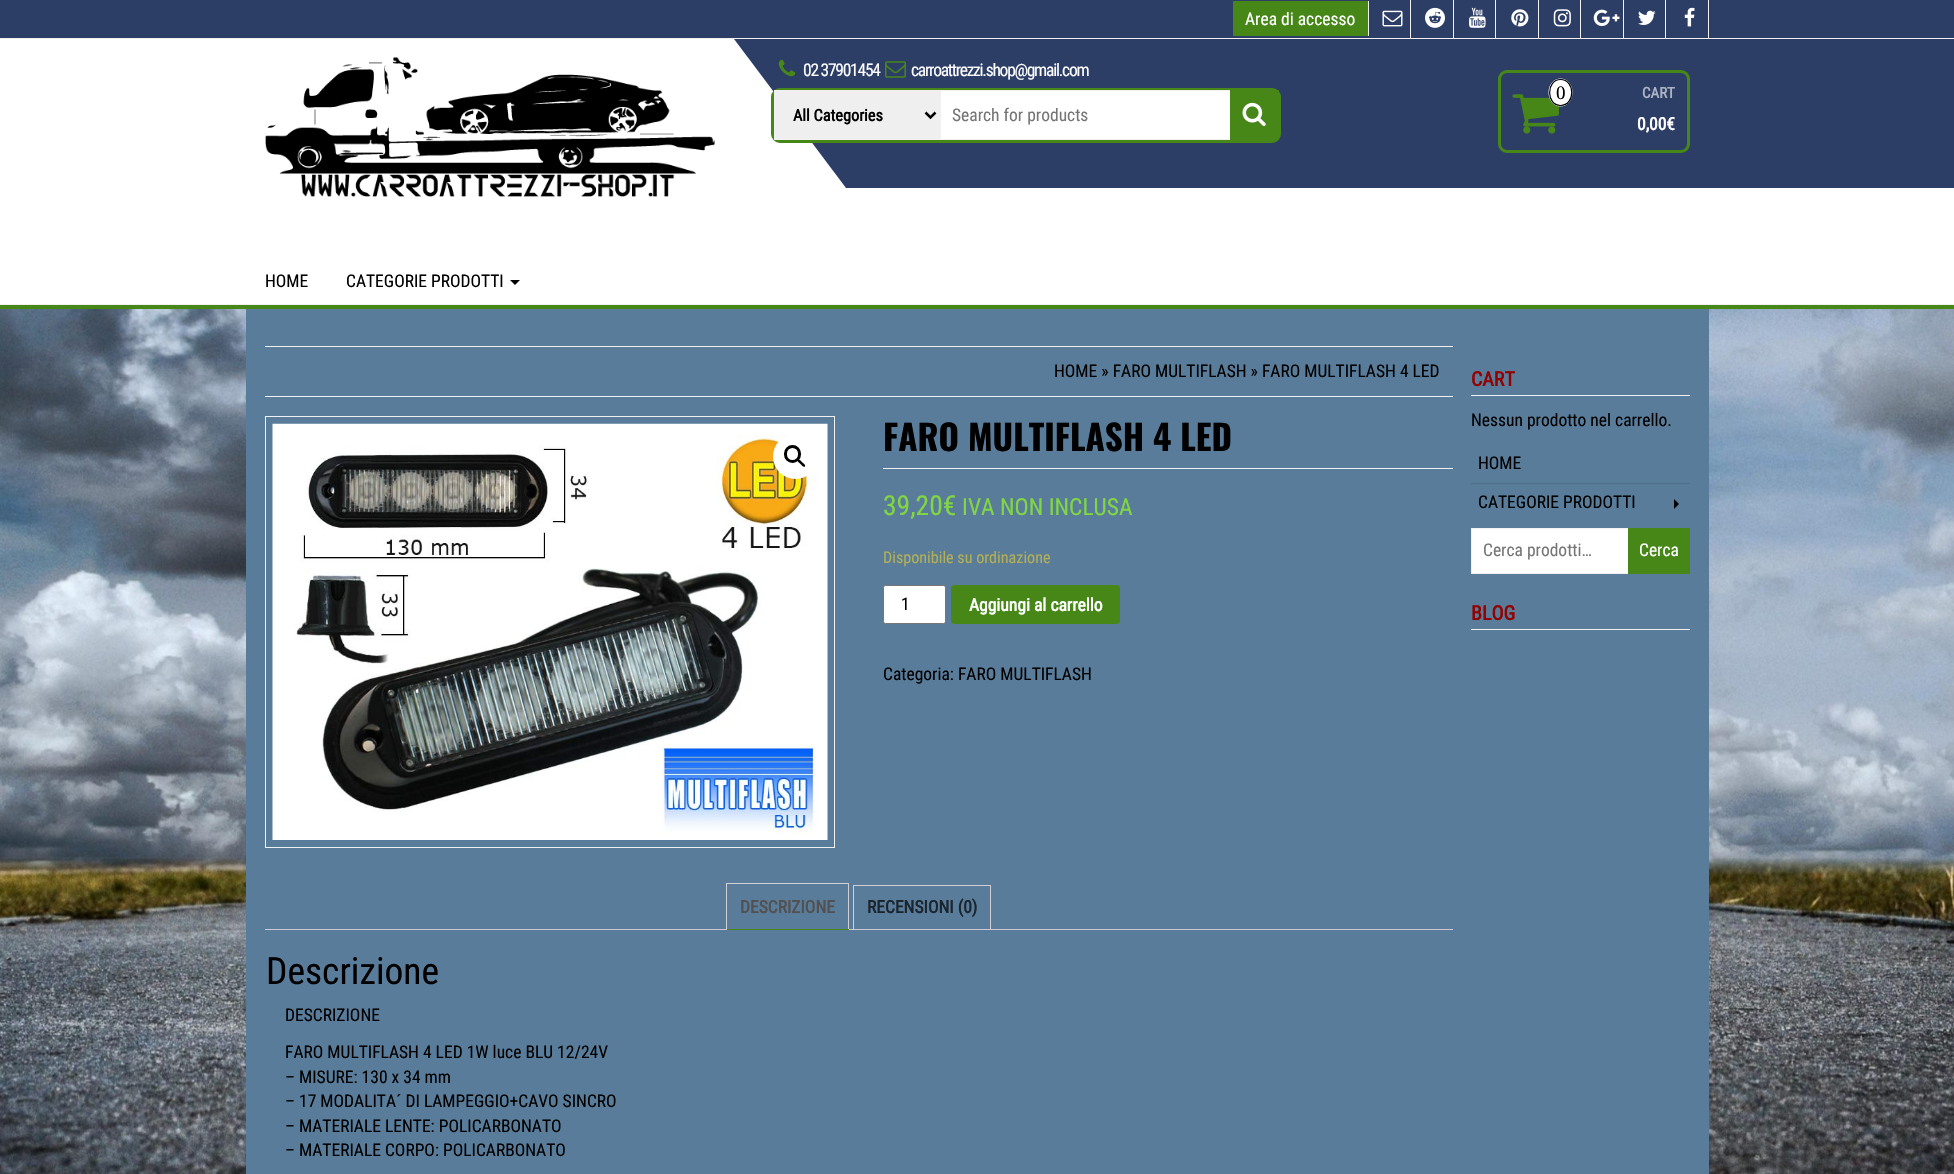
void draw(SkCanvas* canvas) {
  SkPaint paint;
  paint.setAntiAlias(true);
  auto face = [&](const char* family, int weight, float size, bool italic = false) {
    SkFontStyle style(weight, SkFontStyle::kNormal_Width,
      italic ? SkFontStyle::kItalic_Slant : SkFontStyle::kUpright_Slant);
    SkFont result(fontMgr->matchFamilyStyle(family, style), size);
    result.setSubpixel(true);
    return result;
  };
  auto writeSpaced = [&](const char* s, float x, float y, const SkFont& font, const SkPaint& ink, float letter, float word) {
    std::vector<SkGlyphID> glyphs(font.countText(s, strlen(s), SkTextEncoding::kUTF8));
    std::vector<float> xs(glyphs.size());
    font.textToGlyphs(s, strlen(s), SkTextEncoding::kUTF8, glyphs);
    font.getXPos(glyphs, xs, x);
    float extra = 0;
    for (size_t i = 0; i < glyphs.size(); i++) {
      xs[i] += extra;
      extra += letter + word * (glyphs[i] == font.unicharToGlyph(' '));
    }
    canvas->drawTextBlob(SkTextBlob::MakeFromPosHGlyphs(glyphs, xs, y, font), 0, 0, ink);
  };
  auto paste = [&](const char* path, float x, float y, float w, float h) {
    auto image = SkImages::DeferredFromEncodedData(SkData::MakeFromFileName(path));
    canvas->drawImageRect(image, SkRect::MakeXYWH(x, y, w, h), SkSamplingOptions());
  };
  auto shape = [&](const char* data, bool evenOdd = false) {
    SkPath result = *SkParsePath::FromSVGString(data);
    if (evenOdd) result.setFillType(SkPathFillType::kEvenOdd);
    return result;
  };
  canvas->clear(0xffffffff);
  paste("img/1.png", 0, 309, 1954, 865);
  {
    const struct { float x, y, w, h; SkColor color; } items[] = {
      {0, 305, 1954, 4, 0xff468718},
      {0, 0, 1954, 38, 0xff2d3e66},
      {0, 38, 1954, 1, 0xfff1f1f1},
      {1233, 1, 135, 35, 0xff468718},
      {1368, 1, 1, 35, 0xfff1f1f1},
      {1410, 0, 1, 38, 0xfff1f1f1},
    };
    for (auto [x, y, w, h, color] : items) {
      paint.setColor(color);
      canvas->drawRect(SkRect::MakeXYWH(x, y, w, h), paint);
    }
  }
  paste("img/2.png", 1382, 10, 21, 17);
  canvas->drawRect(SkRect::MakeXYWH(1453, 0, 1, 38), paint);
  paste("img/3.png", 1425, 7, 20, 21);
  canvas->drawRect(SkRect::MakeXYWH(1495, 0, 1, 38), paint);
  paste("img/4.png", 1469, 7, 17, 21);
  canvas->drawRect(SkRect::MakeXYWH(1538, 0, 1, 38), paint);
  paste("img/5.png", 1511, 9, 18, 18);
  canvas->drawRect(SkRect::MakeXYWH(1580, 0, 1, 38), paint);
  paste("img/6.png", 1553, 9, 18, 18);
  canvas->drawRect(SkRect::MakeXYWH(1623, 0, 1, 38), paint);
  paste("img/7.png", 1593, 9, 27, 17);
  canvas->drawRect(SkRect::MakeXYWH(1665, 0, 1, 38), paint);
  paste("img/8.png", 1638, 10, 18, 15);
  canvas->drawRect(SkRect::MakeXYWH(1708, 0, 1, 38), paint);
  paste("img/9.png", 1684, 7, 11, 20);
  canvas->drawRect(SkRect::MakeXYWH(0, 304, 1954, 1), paint);
  paste("img/10.png", 265, 57, 450, 140);
  paint.setColor(0xff2d3e66);
  canvas->drawRect(SkRect::MakeXYWH(734, 39, 1220, 149), paint);
  paint.setColor(0xffffffff);
  canvas->drawPath(shape("M734 188V39L846 188Z"), paint);
  paste("img/11.png", 778, 59, 18, 18);
  paste("img/12.png", 885, 61, 21, 17);
  paint.setStroke(true);
  paint.setStrokeWidth(3);
  paint.setColor(0xff468718);
  canvas->drawRoundRect(SkRect::MakeXYWH(772.5f, 89.5f, 507, 52), 7.5f, 7.5f, paint);
  paint.setStroke(false);
  paint.setColor(0xffefefef);
  canvas->drawRect(SkRect::MakeXYWH(774.5f, 90.5f, 166, 49), paint);
  paint.setStroke(true);
  paint.setStrokeWidth(1);
  paint.setColor(0xfff1f1f1);
  canvas->drawRect(SkRect::MakeXYWH(774.5f, 90.5f, 166, 49), paint);
  paint.setStrokeWidth(2.5f);
  paint.setColor(0xff000000);
  canvas->drawPath(shape("M925.5 112.5L930.5 117.5L935.5 112.5"), paint);
  paint.setStroke(false);
  paint.setColor(0xffffffff);
  canvas->drawRect(SkRect::MakeXYWH(941, 91, 289, 48), paint);
  paint.setStroke(true);
  paint.setStrokeWidth(1);
  paint.setColor(0xfff1f1f1);
  canvas->drawRect(SkRect::MakeXYWH(940.5f, 90.5f, 335, 49), paint);
  paint.setStroke(false);
  paint.setColor(0xff468718);
  canvas->drawRect(SkRect::MakeXYWH(1230, 90, 49, 50), paint);
  paste("img/13.png", 1242, 102, 24, 24);
  paint.setStroke(true);
  paint.setStrokeWidth(3);
  canvas->drawRoundRect(SkRect::MakeXYWH(1499.5f, 71.5f, 189, 80), 7.5f, 7.5f, paint);
  paste("img/14.png", 1512, 94, 47, 40);
  paint.setStroke(false);
  paint.setColor(0xffffffff);
  canvas->drawOval(SkRect::MakeXYWH(1548.5f, 78.5f, 24, 28), paint);
  paint.setStroke(true);
  paint.setStrokeWidth(1.2f);
  paint.setColor(0xff000000);
  canvas->drawPath(shape("M1560.5 79.5C1575.5 79.5 1575.5 105.5 1560.5 105.5C1546 105.5 1546 79.5 1560.5 79.5Z"), paint);
  paint.setStroke(false);
  canvas->drawPath(shape("M510 280H520L515 285Z"), paint);
  {
    const struct { float x, y, w, h; SkColor color; } items[] = {
      {246, 309, 1463, 865, 0xff597c9a},
      {265, 346, 1188, 1, 0xfff1f1f1},
      {265, 396, 1188, 1, 0xfff1f1f1},
    };
    for (auto [x, y, w, h, color] : items) {
      paint.setColor(color);
      canvas->drawRect(SkRect::MakeXYWH(x, y, w, h), paint);
    }
  }
  paint.setStroke(true);
  paint.setStrokeWidth(1);
  canvas->drawRect(SkRect::MakeXYWH(265.5f, 416.5f, 569, 431), paint);
  paste("img/15.png", 272, 423, 556, 417);
  paint.setStroke(false);
  paint.setColor(0xffffffff);
  canvas->drawCircle(795.5f, 456.5f, 22.5f, paint);
  paint.setStroke(true);
  paint.setStrokeWidth(3);
  paint.setColor(0xff000000);
  canvas->drawRoundRect(SkRect::MakeXYWH(785.5f, 446.5f, 14, 15), 7, 7, paint);
  paint.setStroke(false);
  canvas->drawPath(shape("M797.5 459.5C799 458 801.5 461.5 802 462C803 463 806 465 805 466.5C803.5 468 801 464.5 800.5 464C799.5 463 796.5 461 797.5 459.5Z"), paint);
  paint.setColor(0xfff1f1f1);
  canvas->drawRect(SkRect::MakeXYWH(883, 468, 570, 1), paint);
  paint.setColor(0xffffffff);
  canvas->drawRoundRect(SkRect::MakeXYWH(883.5f, 585.5f, 62, 38), 2, 2, paint);
  paint.setStroke(true);
  paint.setStrokeWidth(1);
  paint.setColor(0xff767676);
  canvas->drawRoundRect(SkRect::MakeXYWH(883.5f, 585.5f, 62, 38), 2, 2, paint);
  paint.setStroke(false);
  paint.setColor(0xff468718);
  canvas->drawRoundRect(SkRect::MakeXYWH(951, 585, 169, 39), 4, 4, paint);
  paint.setColor(0xffd3ced2);
  canvas->drawRect(SkRect::MakeXYWH(726, 883, 123, 1), paint);
  paint.setStroke(true);
  canvas->drawRect(SkRect::MakeXYWH(853.5f, 885.5f, 137, 44), paint);
  paint.setStroke(false);
  {
    const struct { float x, y, w, h; SkColor color; } items[] = {
      {265, 929, 1188, 1, 0xffcfc8d8},
      {848, 883, 1, 47, 0xffd3ced2},
      {726, 929, 123, 1, 0xff468718},
      {726, 883, 1, 47, 0xffd3ced2},
      {1471, 395, 219, 1, 0xfff1f1f1},
      {1471, 483, 219, 1, 0xff4f6e89},
    };
    for (auto [x, y, w, h, color] : items) {
      paint.setColor(color);
      canvas->drawRect(SkRect::MakeXYWH(x, y, w, h), paint);
    }
  }
  paint.setColor(0xff000000);
  canvas->drawPath(shape("M1674 509V499L1679 504Z"), paint);
  paint.setColor(0xffffffff);
  canvas->drawRect(SkRect::MakeXYWH(1472, 529, 156, 44), paint);
  paint.setStroke(true);
  paint.setColor(0xfff1f1f1);
  canvas->drawRect(SkRect::MakeXYWH(1471.5f, 528.5f, 218, 45), paint);
  paint.setStroke(false);
  paint.setColor(0xff468718);
  canvas->drawRect(SkRect::MakeXYWH(1628, 528, 62, 46), paint);
  paint.setColor(0xfff1f1f1);
  canvas->drawRect(SkRect::MakeXYWH(1471, 629, 219, 1), paint);
  auto f0 = face("Roboto Condensed", 400, 17.5f);
  paint.setColor(0xffffffff);
  canvas->drawString("Area di accesso", 1245, 25, f0, paint);
  writeSpaced("02 37901454", 803, 76, f0, paint, -1.25f, 0);
  writeSpaced("carroattrezzi.shop@gmail.com", 911, 76, f0, paint, -1.25f, 0);
  auto f1 = face("Roboto Condensed", 700, 16.25f);
  paint.setColor(0xff000000);
  canvas->drawString("All Categories", 793, 121, f1, paint);
  paint.setColor(0xff757575);
  canvas->drawString("Search for products", 952, 121, f0, paint);
  auto f2 = face("Liberation Serif", 400, 19);
  paint.setColor(0xff000000);
  canvas->drawString("0", 1556, 99, f2, paint);
  auto f3 = face("Roboto Condensed", 700, 15);
  paint.setColor(0xffabb2c2);
  canvas->drawString("CART", 1642, 98, f3, paint);
  auto f4 = face("Roboto Condensed", 700, 17.5f);
  paint.setColor(0xffffffff);
  canvas->drawString("0,00€", 1637, 130, f4, paint);
  paint.setColor(0xff000000);
  {
    const struct { const char* s; float x, y; } items[] = {
      {"HOME", 265, 287},
      {"CATEGORIE PRODOTTI", 346, 287},
      {"HOME » FARO MULTIFLASH » FARO MULTIFLASH 4 LED", 1054, 377},
    };
    for (auto [s, x, y] : items) {
      canvas->drawString(s, x, y, f0, paint);
    }
  }
  auto f5 = face("Oswald", 700, 35);
  canvas->drawString("FARO MULTIFLASH 4 LED", 883, 451, f5, paint);
  auto f6 = face("Roboto Condensed", 400, 27.5f);
  paint.setColor(0xff81d742);
  canvas->drawString("39,20€", 883, 515, f6, paint);
  auto f7 = face("Roboto Condensed", 400, 23.5f);
  canvas->drawString("IVA NON INCLUSA", 962, 515, f7, paint);
  auto f8 = face("Roboto Condensed", 400, 16.1f);
  paint.setColor(0xffb3af54);
  canvas->drawString("Disponibile su ordinazione", 883, 563, f8, paint);
  paint.setColor(0xff000000);
  canvas->drawString("1", 901, 610, f0, paint);
  paint.setColor(0xffffffff);
  canvas->drawString("Aggiungi al carrello", 969, 611, f4, paint);
  paint.setColor(0xff000000);
  canvas->drawString("Categoria: FARO MULTIFLASH", 883, 680, f0, paint);
  paint.setColor(0xff515151);
  canvas->drawString("DESCRIZIONE", 740, 913, f4, paint);
  paint.setColor(0xff1b252e);
  canvas->drawString("RECENSIONI (0)", 867, 913, f4, paint);
  auto f9 = face("Roboto Condensed", 400, 37.5f);
  paint.setColor(0xff000000);
  canvas->drawString("Descrizione", 266, 984, f9, paint);
  {
    const struct { const char* s; float x, y; } items[] = {
      {"DESCRIZIONE", 285, 1021},
      {"FARO MULTIFLASH 4 LED 1W luce BLU 12/24V", 285, 1058},
      {"– MISURE: 130 x 34 mm", 285, 1083},
      {"– 17 MODALITA´ DI LAMPEGGIO+CAVO SINCRO", 285, 1107},
      {"– MATERIALE LENTE: POLICARBONATO", 285, 1132},
      {"– MATERIALE CORPO: POLICARBONATO", 285, 1156},
    };
    for (auto [s, x, y] : items) {
      canvas->drawString(s, x, y, f0, paint);
    }
  }
  auto f10 = face("Roboto Condensed", 700, 20);
  paint.setColor(0xff920000);
  canvas->drawString("CART", 1471, 386, f10, paint);
  paint.setColor(0xff000000);
  {
    const struct { const char* s; float x, y; } items[] = {
      {"Nessun prodotto nel carrello.", 1471, 426},
      {"HOME", 1478, 469},
      {"CATEGORIE PRODOTTI", 1478, 508},
    };
    for (auto [s, x, y] : items) {
      canvas->drawString(s, x, y, f0, paint);
    }
  }
  paint.setColor(0xff757575);
  canvas->drawString("Cerca prodotti…", 1483, 556, f0, paint);
  paint.setColor(0xffffffff);
  canvas->drawString("Cerca", 1639, 556, f0, paint);
  paint.setColor(0xff920000);
  canvas->drawString("BLOG", 1471, 620, f10, paint);
}
